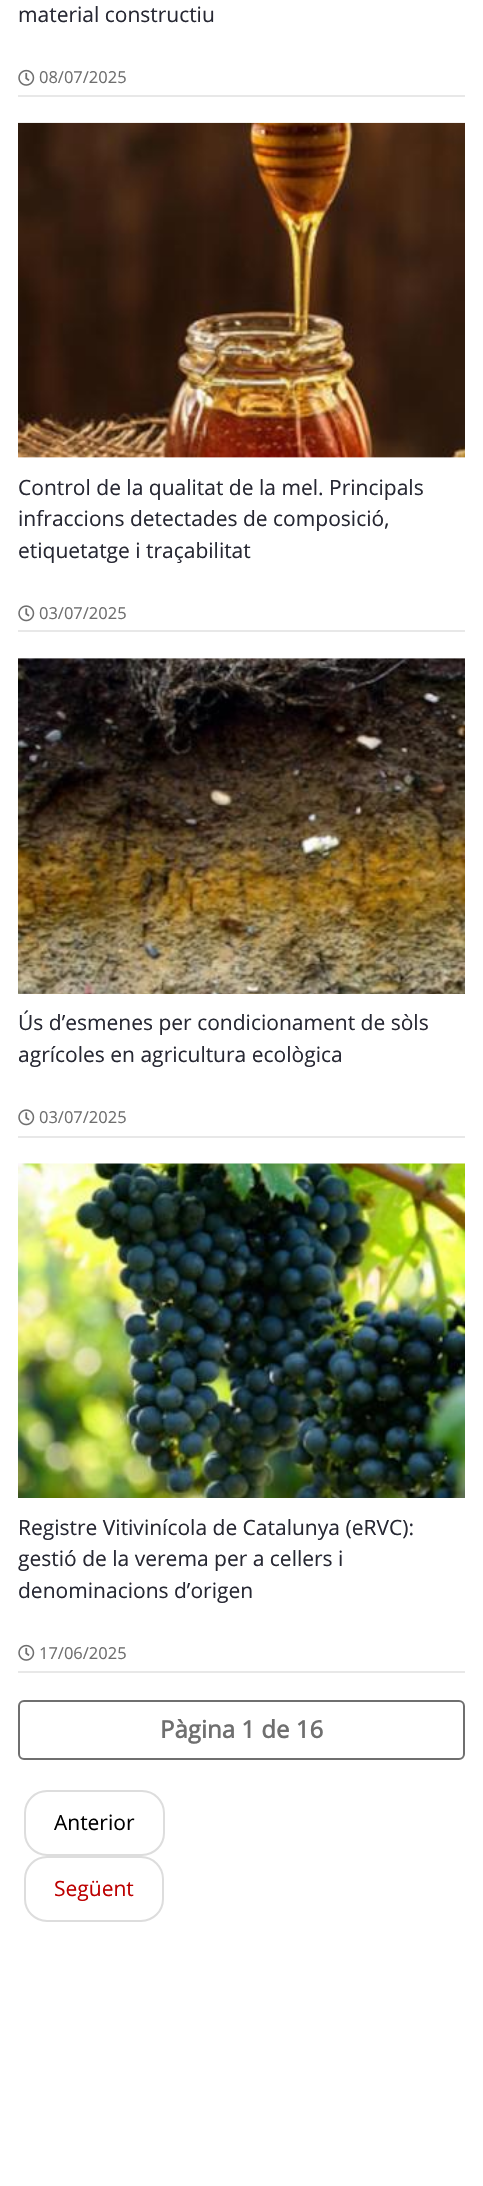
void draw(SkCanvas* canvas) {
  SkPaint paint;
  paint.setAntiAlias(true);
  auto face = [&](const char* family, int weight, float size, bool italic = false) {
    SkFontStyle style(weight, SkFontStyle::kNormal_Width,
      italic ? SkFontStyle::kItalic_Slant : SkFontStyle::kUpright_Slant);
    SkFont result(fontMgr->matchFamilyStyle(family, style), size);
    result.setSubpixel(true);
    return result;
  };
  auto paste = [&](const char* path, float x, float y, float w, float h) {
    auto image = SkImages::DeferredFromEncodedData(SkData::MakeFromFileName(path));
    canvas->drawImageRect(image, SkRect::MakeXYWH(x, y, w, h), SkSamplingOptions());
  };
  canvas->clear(0xffffffff);
  paint.setColor(0xffe8e8e8);
  canvas->drawRect(SkRect::MakeXYWH(18, 95, 447, 2), paint);
  paste("img/1.png", 18, 69, 17, 17);
  paste("img/2.png", 18, 122, 447, 336);
  canvas->drawRect(SkRect::MakeXYWH(18, 630, 447, 2), paint);
  paste("img/3.png", 18, 605, 17, 17);
  paste("img/4.png", 18, 658, 447, 336);
  canvas->drawRect(SkRect::MakeXYWH(18, 1136, 447, 2), paint);
  paste("img/3.png", 18, 1109, 17, 17);
  paste("img/5.png", 18, 1163, 447, 335);
  canvas->drawRect(SkRect::MakeXYWH(18, 1671, 447, 2), paint);
  paste("img/1.png", 18, 1644, 17, 17);
  paint.setStroke(true);
  paint.setStrokeWidth(2);
  paint.setColor(0xff6f6f6f);
  canvas->drawRoundRect(SkRect::MakeXYWH(19, 1701, 445, 58), 5, 5, paint);
  paint.setColor(0xffdddddd);
  canvas->drawRoundRect(SkRect::MakeXYWH(25, 1791, 139, 64), 22, 22, paint);
  canvas->drawRoundRect(SkRect::MakeXYWH(25, 1857, 138, 64), 22, 22, paint);
  auto f0 = face("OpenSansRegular", 400, 21);
  paint.setStroke(false);
  paint.setColor(0xff272833);
  canvas->drawString("material constructiu", 18, 22, f0, paint);
  auto f1 = face("OpenSansRegular", 400, 16.5f);
  paint.setColor(0xff6f6f6f);
  canvas->drawString("08/07/2025", 39, 83, f1, paint);
  paint.setColor(0xff272833);
  {
    const struct { const char* s; float x, y; } items[] = {
      {"Control de la qualitat de la mel. Principals", 18, 495},
      {"infraccions detectades de composició,", 18, 526},
      {"etiquetatge i traçabilitat", 18, 558},
    };
    for (auto [s, x, y] : items) {
      canvas->drawString(s, x, y, f0, paint);
    }
  }
  paint.setColor(0xff6f6f6f);
  canvas->drawString("03/07/2025", 39, 619, f1, paint);
  paint.setColor(0xff272833);
  canvas->drawString("Ús d’esmenes per condicionament de sòls", 18, 1030, f0, paint);
  canvas->drawString("agrícoles en agricultura ecològica", 18, 1062, f0, paint);
  paint.setColor(0xff6f6f6f);
  canvas->drawString("03/07/2025", 39, 1123, f1, paint);
  paint.setColor(0xff272833);
  {
    const struct { const char* s; float x, y; } items[] = {
      {"Registre Vitivinícola de Catalunya (eRVC):", 18, 1535},
      {"gestió de la verema per a cellers i", 18, 1566},
      {"denominacions d’origen", 18, 1598},
    };
    for (auto [s, x, y] : items) {
      canvas->drawString(s, x, y, f0, paint);
    }
  }
  paint.setColor(0xff6f6f6f);
  canvas->drawString("17/06/2025", 39, 1659, f1, paint);
  auto f2 = face("OpenSansRegular", 700, 24);
  canvas->drawString("Pàgina 1 de 16", 160, 1738, f2, paint);
  paint.setColor(0xff000000);
  canvas->drawString("Anterior", 54, 1830, f0, paint);
  paint.setColor(0xffbd0000);
  canvas->drawString("Següent", 54, 1896, f0, paint);
}
